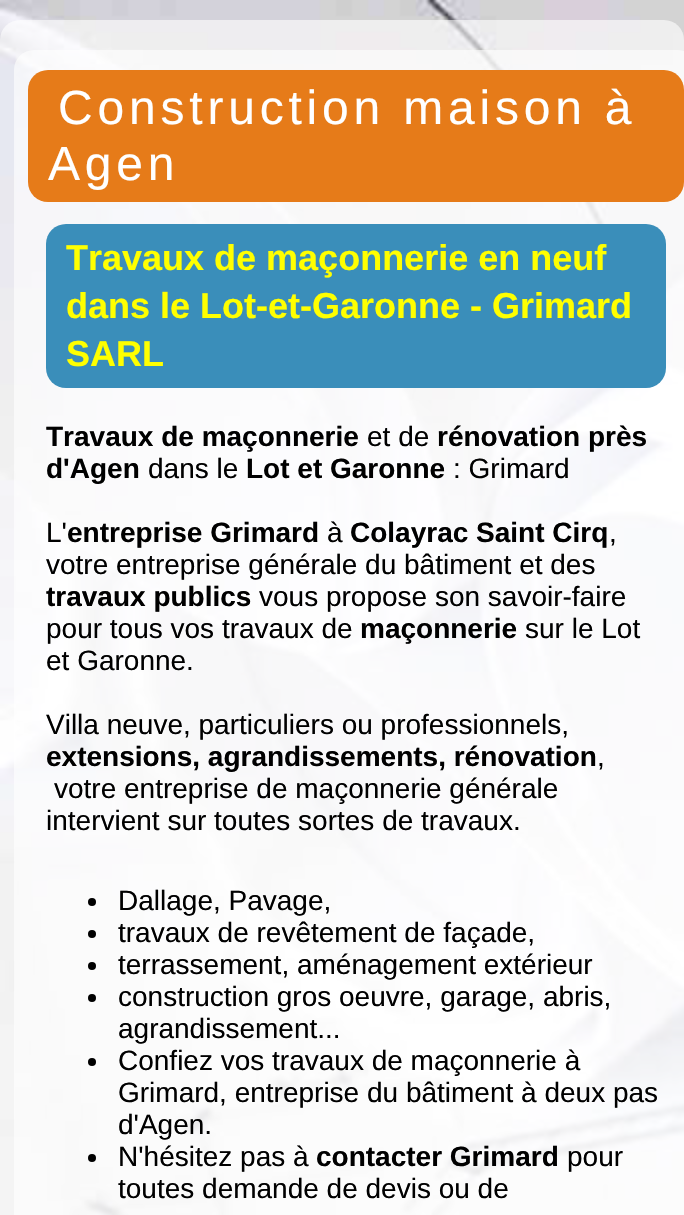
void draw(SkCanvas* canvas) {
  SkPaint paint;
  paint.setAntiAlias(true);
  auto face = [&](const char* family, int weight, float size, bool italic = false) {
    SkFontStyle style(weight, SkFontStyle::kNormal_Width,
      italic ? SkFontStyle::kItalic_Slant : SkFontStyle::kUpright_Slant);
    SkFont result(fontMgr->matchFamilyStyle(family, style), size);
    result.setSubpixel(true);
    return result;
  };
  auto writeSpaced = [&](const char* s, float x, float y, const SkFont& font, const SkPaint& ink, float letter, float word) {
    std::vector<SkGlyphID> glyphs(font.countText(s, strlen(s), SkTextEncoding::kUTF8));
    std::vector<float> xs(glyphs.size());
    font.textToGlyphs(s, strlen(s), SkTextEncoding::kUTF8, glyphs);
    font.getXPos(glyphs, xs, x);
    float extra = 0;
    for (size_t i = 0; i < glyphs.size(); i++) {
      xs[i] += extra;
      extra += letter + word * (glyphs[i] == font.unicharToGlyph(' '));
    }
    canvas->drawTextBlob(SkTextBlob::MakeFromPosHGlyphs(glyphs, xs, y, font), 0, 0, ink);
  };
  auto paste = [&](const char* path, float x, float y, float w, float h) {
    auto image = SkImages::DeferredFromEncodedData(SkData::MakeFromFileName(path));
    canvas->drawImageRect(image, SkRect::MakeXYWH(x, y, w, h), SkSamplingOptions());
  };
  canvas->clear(0xffffffff);
  paste("img/1.png", 0, 0, 684, 1215);
  paste("img/2.png", 0, 20, 684, 1195);
  paste("img/3.png", 14, 50, 670, 1165);
  paint.setColor(0xffe67b19);
  canvas->drawRoundRect(SkRect::MakeXYWH(28, 70, 656, 132), 20, 20, paint);
  paint.setColor(0xff3a8eba);
  canvas->drawRoundRect(SkRect::MakeXYWH(46, 224, 620, 164), 20, 20, paint);
  paint.setColor(0xff000000);
  canvas->drawCircle(92, 902, 4, paint);
  canvas->drawCircle(92, 934, 4, paint);
  canvas->drawCircle(92, 966, 4, paint);
  canvas->drawCircle(92, 998, 4, paint);
  canvas->drawCircle(92, 1062, 4, paint);
  canvas->drawCircle(92, 1158, 4, paint);
  auto f0 = face("Liberation Sans", 400, 48);
  paint.setColor(0xffffffff);
  writeSpaced("Construction maison à", 58, 124, f0, paint, 4.8f, 0);
  writeSpaced("Agen", 48, 180, f0, paint, 4.8f, 0);
  auto f1 = face("Liberation Sans", 700, 36);
  paint.setColor(0xffffff00);
  {
    const struct { const char* s; float x, y; } items[] = {
      {"Travaux de maçonnerie en neuf", 66, 270},
      {"dans le Lot-et-Garonne - Grimard", 66, 318},
      {"SARL", 66, 366},
    };
    for (auto [s, x, y] : items) {
      canvas->drawString(s, x, y, f1, paint);
    }
  }
  auto f2 = face("Liberation Sans", 700, 28);
  paint.setColor(0xff000000);
  canvas->drawString("Travaux de maçonnerie", 46, 446, f2, paint);
  auto f3 = face("Liberation Sans", 400, 28);
  canvas->drawString("et de", 367, 446, f3, paint);
  canvas->drawString("rénovation près", 437, 446, f2, paint);
  canvas->drawString("d'Agen", 46, 478, f2, paint);
  canvas->drawString("dans le", 148, 478, f3, paint);
  canvas->drawString("Lot et Garonne", 246, 478, f2, paint);
  canvas->drawString(": Grimard", 453, 478, f3, paint);
  canvas->drawString("L'", 46, 542, f3, paint);
  canvas->drawString("entreprise Grimard", 67, 542, f2, paint);
  canvas->drawString("à", 327, 542, f3, paint);
  canvas->drawString("Colayrac Saint Cirq", 350, 542, f2, paint);
  canvas->drawString(",", 609, 542, f3, paint);
  canvas->drawString("votre entreprise générale du bâtiment et des", 46, 574, f3, paint);
  canvas->drawString("travaux publics", 46, 606, f2, paint);
  canvas->drawString("vous propose son savoir-faire", 259, 606, f3, paint);
  canvas->drawString("pour tous vos travaux de", 46, 638, f3, paint);
  canvas->drawString("maçonnerie", 360, 638, f2, paint);
  {
    const struct { const char* s; float x, y; } items[] = {
      {"sur le Lot", 525, 638},
      {"et Garonne.", 46, 670},
      {"Villa neuve, particuliers ou professionnels,", 46, 734},
    };
    for (auto [s, x, y] : items) {
      canvas->drawString(s, x, y, f3, paint);
    }
  }
  canvas->drawString("extensions, agrandissements, rénovation", 46, 766, f2, paint);
  {
    const struct { const char* s; float x, y; } items[] = {
      {",", 597, 766},
      {"votre entreprise de maçonnerie générale", 54, 798},
      {"intervient sur toutes sortes de travaux.", 46, 830},
      {"Dallage, Pavage,", 118, 910},
      {"travaux de revêtement de façade,", 118, 942},
      {"terrassement, aménagement extérieur", 118, 974},
      {"construction gros oeuvre, garage, abris,", 118, 1006},
      {"agrandissement...", 118, 1038},
      {"Confiez vos travaux de maçonnerie à", 118, 1070},
      {"Grimard, entreprise du bâtiment à deux pas", 118, 1102},
      {"d'Agen.", 118, 1134},
      {"N'hésitez pas à", 118, 1166},
    };
    for (auto [s, x, y] : items) {
      canvas->drawString(s, x, y, f3, paint);
    }
  }
  canvas->drawString("contacter Grimard", 316, 1166, f2, paint);
  canvas->drawString("pour", 567, 1166, f3, paint);
  canvas->drawString("toutes demande de devis ou de", 118, 1198, f3, paint);
}
